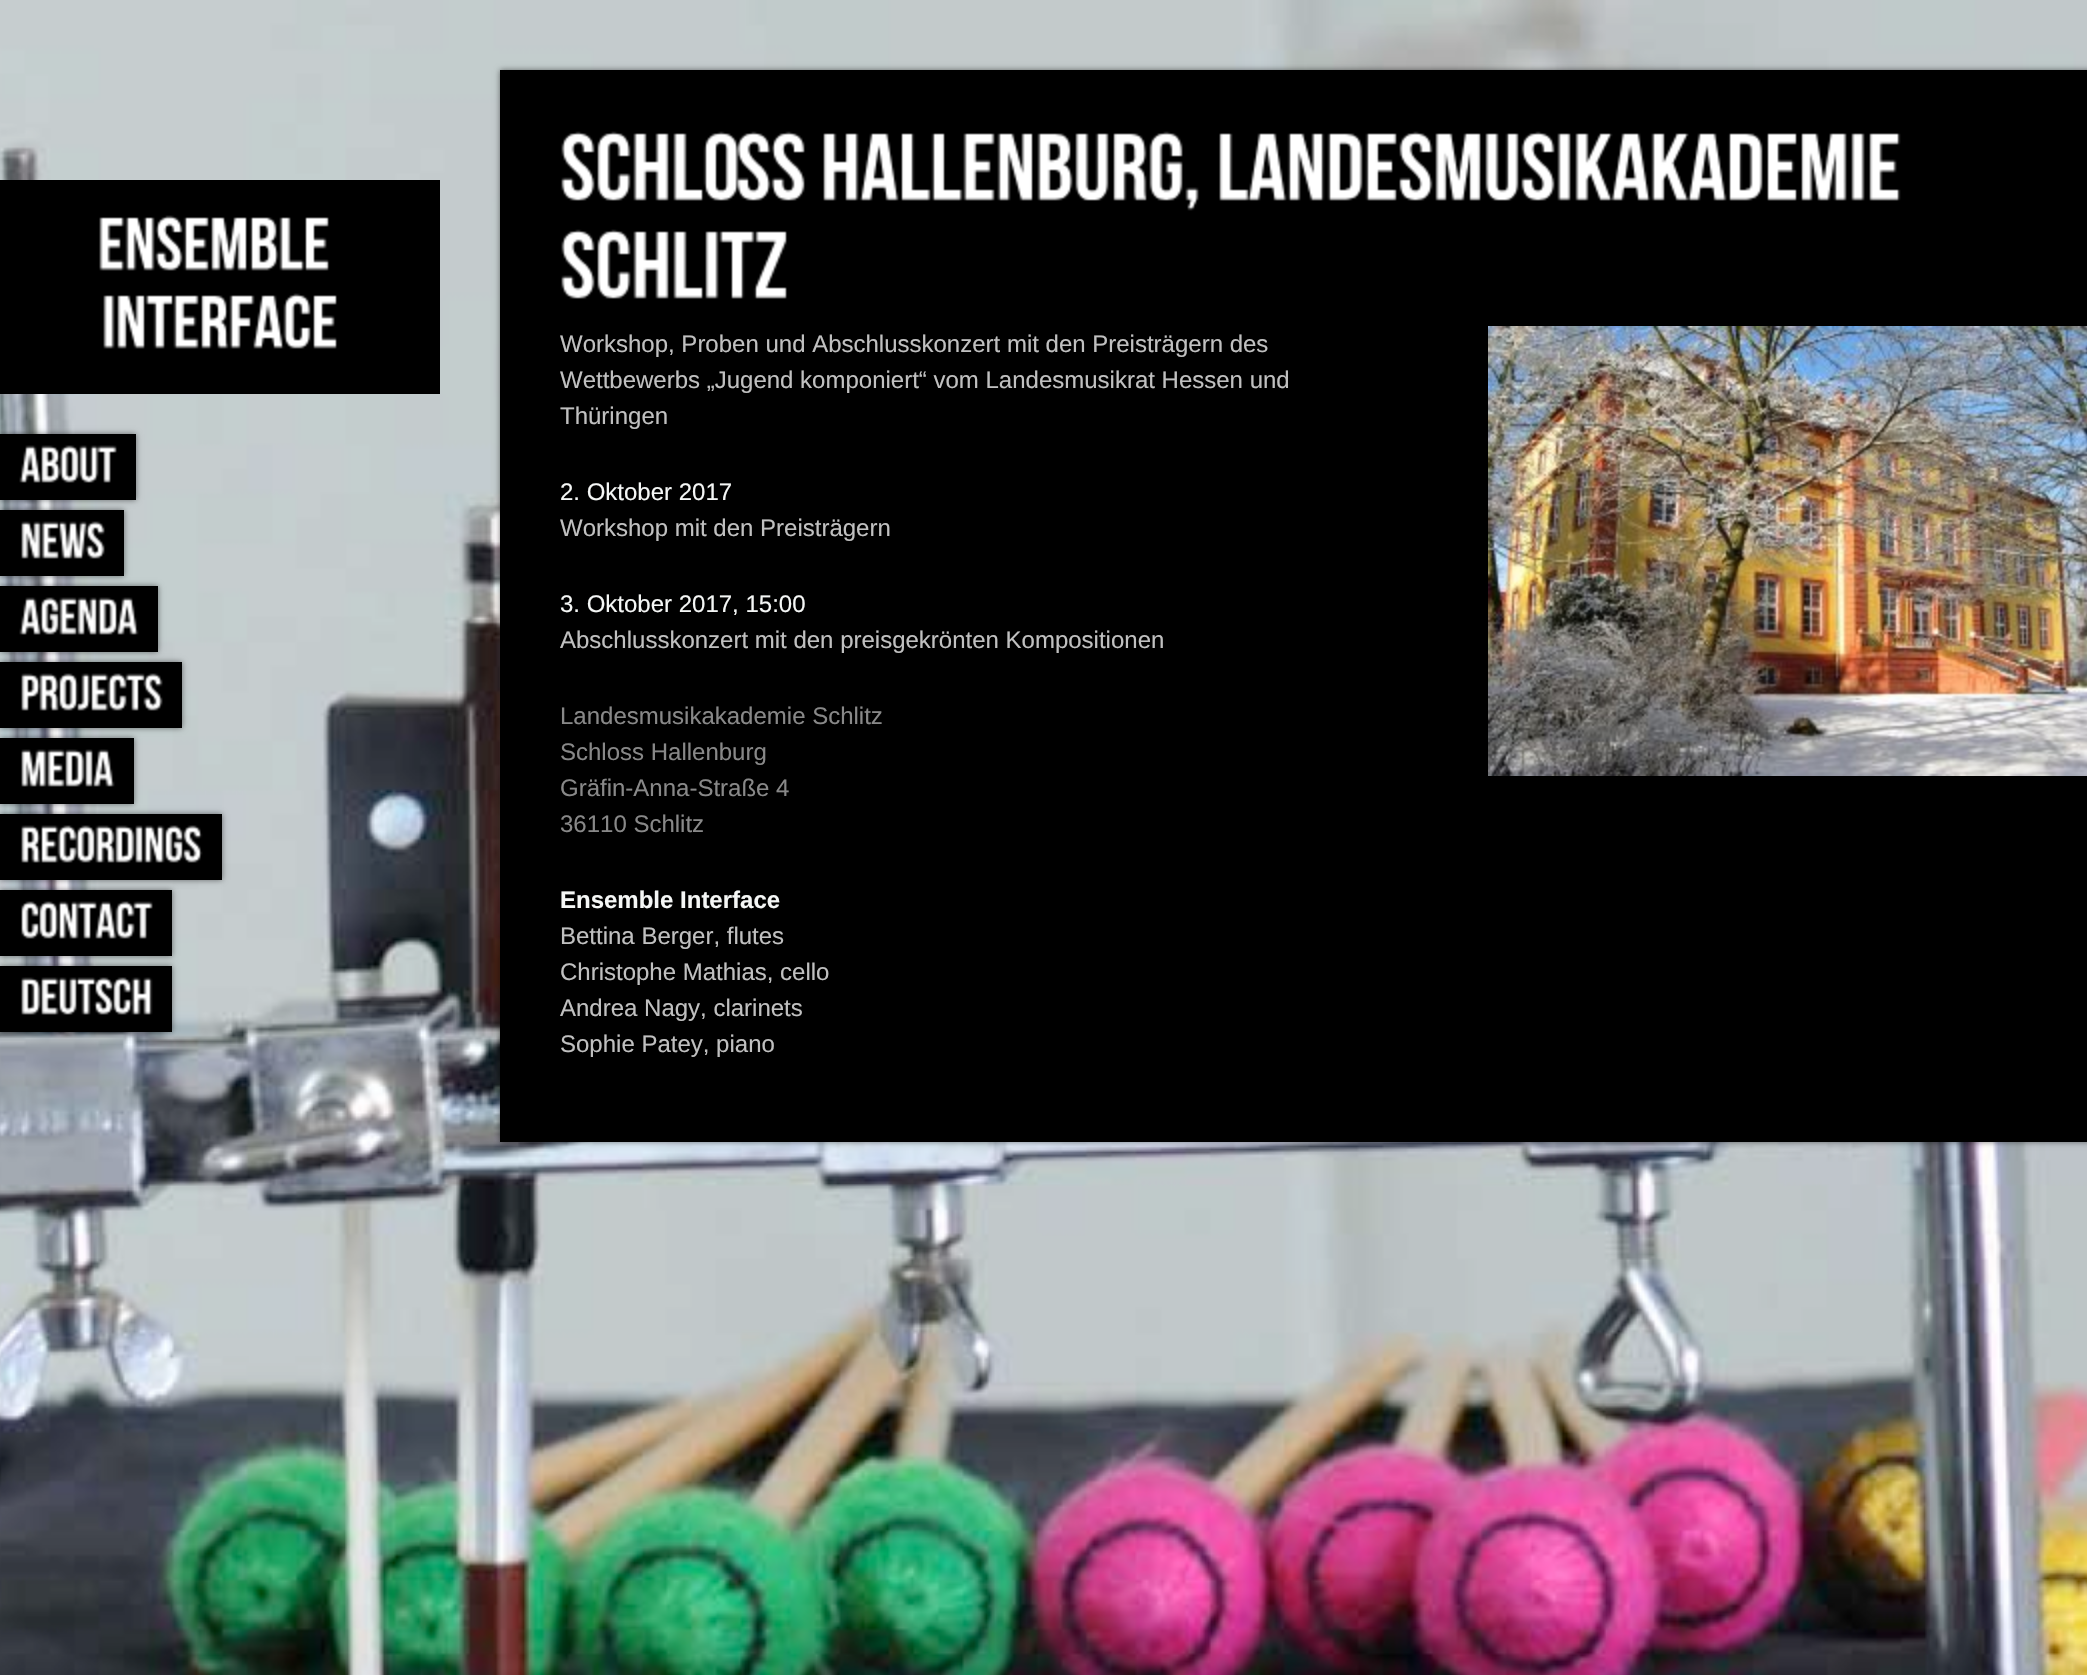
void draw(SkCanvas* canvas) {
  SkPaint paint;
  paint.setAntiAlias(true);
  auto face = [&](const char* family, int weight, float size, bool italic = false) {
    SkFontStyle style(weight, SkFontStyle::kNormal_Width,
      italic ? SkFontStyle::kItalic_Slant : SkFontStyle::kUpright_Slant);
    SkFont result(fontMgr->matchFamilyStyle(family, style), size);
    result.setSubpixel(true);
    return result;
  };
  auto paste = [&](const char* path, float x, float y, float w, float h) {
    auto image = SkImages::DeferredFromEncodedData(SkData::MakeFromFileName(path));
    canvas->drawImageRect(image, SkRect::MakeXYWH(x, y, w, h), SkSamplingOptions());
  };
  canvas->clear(0xffffffff);
  paste("img/1.png", 0, 0, 2087, 1675);
  paint.setColor(0xff000000);
  canvas->drawRect(SkRect::MakeXYWH(0, 180, 440, 214), paint);
  paste("img/2.png", 99, 215, 230, 56);
  paste("img/3.png", 103, 293, 234, 56);
  paint.setColor(0x80000000);
  paint.setMaskFilter(SkMaskFilter::MakeBlur(kNormal_SkBlurStyle, 3));
  canvas->drawRect(SkRect::MakeXYWH(0, 434, 136, 66), paint);
  paint.setMaskFilter(nullptr);
  paint.setColor(0xff000000);
  canvas->drawRect(SkRect::MakeXYWH(0, 434, 136, 66), paint);
  paste("img/4.png", 19, 445, 98, 38);
  paint.setColor(0x80000000);
  paint.setMaskFilter(SkMaskFilter::MakeBlur(kNormal_SkBlurStyle, 3));
  canvas->drawRect(SkRect::MakeXYWH(0, 510, 124, 66), paint);
  paint.setMaskFilter(nullptr);
  paint.setColor(0xff000000);
  canvas->drawRect(SkRect::MakeXYWH(0, 510, 124, 66), paint);
  paste("img/5.png", 21, 521, 84, 38);
  paint.setColor(0x80000000);
  paint.setMaskFilter(SkMaskFilter::MakeBlur(kNormal_SkBlurStyle, 3));
  canvas->drawRect(SkRect::MakeXYWH(0, 586, 158, 66), paint);
  paint.setMaskFilter(nullptr);
  paint.setColor(0xff000000);
  canvas->drawRect(SkRect::MakeXYWH(0, 586, 158, 66), paint);
  paste("img/6.png", 19, 597, 120, 38);
  paint.setColor(0x80000000);
  paint.setMaskFilter(SkMaskFilter::MakeBlur(kNormal_SkBlurStyle, 3));
  canvas->drawRect(SkRect::MakeXYWH(0, 662, 182, 66), paint);
  paint.setMaskFilter(nullptr);
  paint.setColor(0xff000000);
  canvas->drawRect(SkRect::MakeXYWH(0, 662, 182, 66), paint);
  paste("img/7.png", 21, 673, 142, 38);
  paint.setColor(0x80000000);
  paint.setMaskFilter(SkMaskFilter::MakeBlur(kNormal_SkBlurStyle, 3));
  canvas->drawRect(SkRect::MakeXYWH(0, 738, 134, 66), paint);
  paint.setMaskFilter(nullptr);
  paint.setColor(0xff000000);
  canvas->drawRect(SkRect::MakeXYWH(0, 738, 134, 66), paint);
  paste("img/8.png", 21, 749, 94, 38);
  paint.setColor(0x80000000);
  paint.setMaskFilter(SkMaskFilter::MakeBlur(kNormal_SkBlurStyle, 3));
  canvas->drawRect(SkRect::MakeXYWH(0, 814, 222, 66), paint);
  paint.setMaskFilter(nullptr);
  paint.setColor(0xff000000);
  canvas->drawRect(SkRect::MakeXYWH(0, 814, 222, 66), paint);
  paste("img/9.png", 21, 825, 182, 38);
  paint.setColor(0x80000000);
  paint.setMaskFilter(SkMaskFilter::MakeBlur(kNormal_SkBlurStyle, 3));
  canvas->drawRect(SkRect::MakeXYWH(0, 890, 172, 66), paint);
  paint.setMaskFilter(nullptr);
  paint.setColor(0xff000000);
  canvas->drawRect(SkRect::MakeXYWH(0, 890, 172, 66), paint);
  paste("img/10.png", 21, 901, 132, 38);
  paint.setColor(0x80000000);
  paint.setMaskFilter(SkMaskFilter::MakeBlur(kNormal_SkBlurStyle, 3));
  canvas->drawRect(SkRect::MakeXYWH(0, 966, 172, 66), paint);
  paint.setMaskFilter(nullptr);
  paint.setColor(0xff000000);
  canvas->drawRect(SkRect::MakeXYWH(0, 966, 172, 66), paint);
  paste("img/11.png", 21, 977, 132, 38);
  paint.setColor(0x80000000);
  paint.setMaskFilter(SkMaskFilter::MakeBlur(kNormal_SkBlurStyle, 3));
  canvas->drawRect(SkRect::MakeXYWH(500, 70, 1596, 1072), paint);
  paint.setMaskFilter(nullptr);
  paint.setColor(0xff000000);
  canvas->drawRect(SkRect::MakeXYWH(500, 70, 1587, 1072), paint);
  paste("img/12.png", 561, 131, 244, 70);
  paste("img/13.png", 823, 131, 376, 80);
  paste("img/14.png", 1219, 131, 682, 70);
  paste("img/15.png", 561, 229, 226, 70);
  paste("img/16.png", 1488, 326, 599, 450);
  auto f0 = face("Liberation Sans", 400, 24);
  paint.setColor(0xffc0c0c0);
  {
    const struct { const char* s; float x, y; } items[] = {
      {"Workshop, Proben und Abschlusskonzert mit den Preisträgern des", 560, 352},
      {"Wettbewerbs „Jugend komponiert“ vom Landesmusikrat Hessen und", 560, 388},
      {"Thüringen", 560, 424},
    };
    for (auto [s, x, y] : items) {
      canvas->drawString(s, x, y, f0, paint);
    }
  }
  paint.setColor(0xfff5f7f6);
  canvas->drawString("2. Oktober 2017", 560, 500, f0, paint);
  paint.setColor(0xffc0c0c0);
  canvas->drawString("Workshop mit den Preisträgern", 560, 536, f0, paint);
  paint.setColor(0xfff5f7f6);
  canvas->drawString("3. Oktober 2017, 15:00", 560, 612, f0, paint);
  paint.setColor(0xffc0c0c0);
  canvas->drawString("Abschlusskonzert mit den preisgekrönten Kompositionen", 560, 648, f0, paint);
  paint.setColor(0xff888888);
  {
    const struct { const char* s; float x, y; } items[] = {
      {"Landesmusikakademie Schlitz", 560, 724},
      {"Schloss Hallenburg", 560, 760},
      {"Gräfin-Anna-Straße 4", 560, 796},
      {"36110 Schlitz", 560, 832},
    };
    for (auto [s, x, y] : items) {
      canvas->drawString(s, x, y, f0, paint);
    }
  }
  auto f1 = face("Liberation Sans", 700, 24);
  paint.setColor(0xfff5f7f6);
  canvas->drawString("Ensemble Interface", 560, 908, f1, paint);
  paint.setColor(0xffc0c0c0);
  {
    const struct { const char* s; float x, y; } items[] = {
      {"Bettina Berger, flutes", 560, 944},
      {"Christophe Mathias, cello", 560, 980},
      {"Andrea Nagy, clarinets", 560, 1016},
      {"Sophie Patey, piano", 560, 1052},
    };
    for (auto [s, x, y] : items) {
      canvas->drawString(s, x, y, f0, paint);
    }
  }
}
